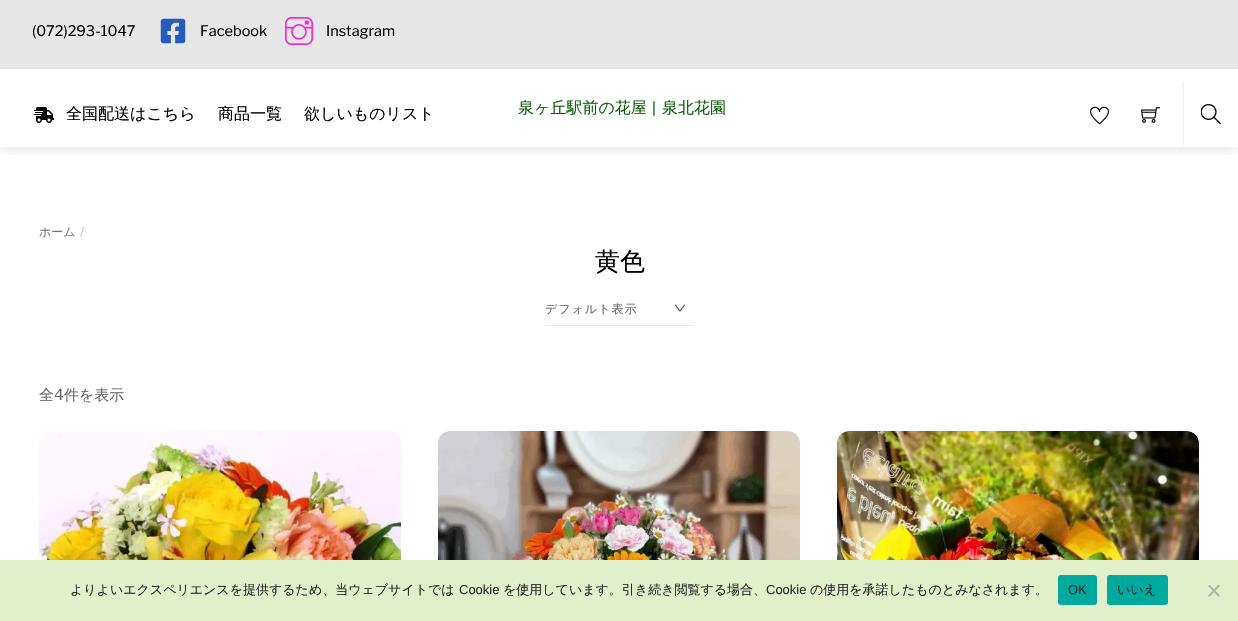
void draw(SkCanvas* canvas) {
  SkPaint paint;
  paint.setAntiAlias(true);
  auto face = [&](const char* family, int weight, float size, bool italic = false) {
    SkFontStyle style(weight, SkFontStyle::kNormal_Width,
      italic ? SkFontStyle::kItalic_Slant : SkFontStyle::kUpright_Slant);
    SkFont result(fontMgr->matchFamilyStyle(family, style), size);
    result.setSubpixel(true);
    return result;
  };
  auto writeSpaced = [&](const char* s, float x, float y, const SkFont& font, const SkPaint& ink, float letter, float word) {
    std::vector<SkGlyphID> glyphs(font.countText(s, strlen(s), SkTextEncoding::kUTF8));
    std::vector<float> xs(glyphs.size());
    font.textToGlyphs(s, strlen(s), SkTextEncoding::kUTF8, glyphs);
    font.getXPos(glyphs, xs, x);
    float extra = 0;
    for (size_t i = 0; i < glyphs.size(); i++) {
      xs[i] += extra;
      extra += letter + word * (glyphs[i] == font.unicharToGlyph(' '));
    }
    canvas->drawTextBlob(SkTextBlob::MakeFromPosHGlyphs(glyphs, xs, y, font), 0, 0, ink);
  };
  auto paste = [&](const char* path, float x, float y, float w, float h) {
    auto image = SkImages::DeferredFromEncodedData(SkData::MakeFromFileName(path));
    canvas->drawImageRect(image, SkRect::MakeXYWH(x, y, w, h), SkSamplingOptions());
  };
  auto shape = [&](const char* data, bool evenOdd = false) {
    SkPath result = *SkParsePath::FromSVGString(data);
    if (evenOdd) result.setFillType(SkPathFillType::kEvenOdd);
    return result;
  };
  canvas->clear(0xffffffff);
  canvas->save();
  canvas->clipRect(SkRect::MakeXYWH(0, 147, 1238, 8));
  paint.setColor(0x1f000000);
  paint.setMaskFilter(SkMaskFilter::MakeBlur(kNormal_SkBlurStyle, 7.5f));
  canvas->drawRect(SkRect::MakeXYWH(0, 1, 1238, 147), paint);
  paint.setMaskFilter(nullptr);
  canvas->restore();
  paint.setColor(0xffe6e6e6);
  canvas->drawRect(SkRect::MakeXYWH(0, 0, 1238, 69), paint);
  paste("img/1.png", 160, 18, 26, 26);
  paste("img/2.png", 285, 17, 28, 28);
  paste("img/3.png", 34, 107, 20, 16);
  paste("img/4.png", 1090, 106, 19, 19);
  paste("img/5.png", 1141, 107, 19, 16);
  paint.setColor(0xfff0f0f0);
  canvas->drawRect(SkRect::MakeXYWH(1183, 82, 1, 65), paint);
  paste("img/6.png", 1201, 104, 20, 21);
  paint.setStroke(true);
  paint.setStrokeWidth(1.2f);
  paint.setStrokeCap(SkPaint::kRound_Cap);
  paint.setColor(0xff535353);
  canvas->drawPath(shape("M675.5 305L680 311L684.5 305"), paint);
  paint.setStroke(false);
  paint.setColor(0xffe9e9e9);
  canvas->drawRect(SkRect::MakeXYWH(545, 325, 149, 1), paint);
  paste("img/7.png", 39, 431, 362, 129);
  paste("img/8.png", 438, 431, 362, 129);
  paste("img/9.png", 837, 431, 362, 129);
  paint.setColor(0xffe1efcb);
  canvas->drawRect(SkRect::MakeXYWH(0, 560, 1238, 61), paint);
  paint.setColor(0xff00a99d);
  canvas->drawRoundRect(SkRect::MakeXYWH(1058, 575, 39, 30), 3, 3, paint);
  canvas->drawRoundRect(SkRect::MakeXYWH(1107, 575, 61, 30), 3, 3, paint);
  paint.setColor(0xffb1b8a6);
  canvas->drawPath(shape("M1218.5 584.5L1220 586L1209.5 597L1208 595.5Z"), paint);
  canvas->drawPath(shape("M1208 586L1209.5 584.5L1220 595.5L1218.5 597Z"), paint);
  auto f0 = face("Libre Franklin", 400, 14.5f);
  paint.setColor(0xff000000);
  {
    const struct { const char* s; float x, y; } items[] = {
      {"(072)293-1047", 32, 36},
      {"Facebook", 200, 36},
      {"Instagram", 326, 36},
    };
    for (auto [s, x, y] : items) {
      canvas->drawString(s, x, y, f0, paint);
    }
  }
  auto f1 = face("WenQuanYi Zen Hei", 500, 16);
  {
    const struct { const char* s; float x, y; } items[] = {
      {"全国配送はこちら", 66, 119},
      {"商品一覧", 218, 119},
      {"欲しいものリスト", 304, 119},
    };
    for (auto [s, x, y] : items) {
      canvas->drawString(s, x, y, f1, paint);
    }
  }
  paint.setColor(0xff0b6108);
  canvas->drawString("泉ヶ丘駅前の花屋", 518, 113, f1, paint);
  auto f2 = face("Work Sans", 400, 16);
  canvas->drawString("|", 652, 113, f2, paint);
  canvas->drawString("泉北花園", 662, 113, f1, paint);
  auto f3 = face("WenQuanYi Zen Hei", 500, 12);
  paint.setColor(0xff767676);
  canvas->drawString("ホーム", 39, 236, f3, paint);
  auto f4 = face("Libre Franklin", 500, 12);
  paint.setColor(0xffc8c8c8);
  canvas->drawString("/", 80, 236, f4, paint);
  auto f5 = face("WenQuanYi Zen Hei", 500, 25);
  paint.setColor(0xff000000);
  canvas->drawString("黄色", 595, 270, f5, paint);
  paint.setColor(0xff666666);
  writeSpaced("デフォルト表示", 545, 313, f3, paint, 1, 0);
  auto f6 = face("WenQuanYi Zen Hei", 500, 15);
  canvas->drawString("全", 39, 400, f6, paint);
  auto f7 = face("Libre Franklin", 400, 15);
  canvas->drawString("4", 54, 400, f7, paint);
  canvas->drawString("件を表示", 64, 400, f6, paint);
  auto f8 = face("WenQuanYi Zen Hei", 500, 13);
  paint.setColor(0xff282828);
  canvas->drawString("よりよいエクスペリエンスを提供するため、当ウェブサイトでは", 70, 594, f8, paint);
  auto f9 = face("Liberation Sans", 400, 13);
  canvas->drawString("Cookie", 459, 594, f9, paint);
  canvas->drawString("を使用しています。引き続き閲覧する場合、", 503, 594, f8, paint);
  canvas->drawString("Cookie", 766, 594, f9, paint);
  canvas->drawString("の使用を承諾したものとみなされます。", 810, 594, f8, paint);
  canvas->drawString("OK", 1068, 594, f9, paint);
  canvas->drawString("いいえ", 1117, 594, f8, paint);
}
